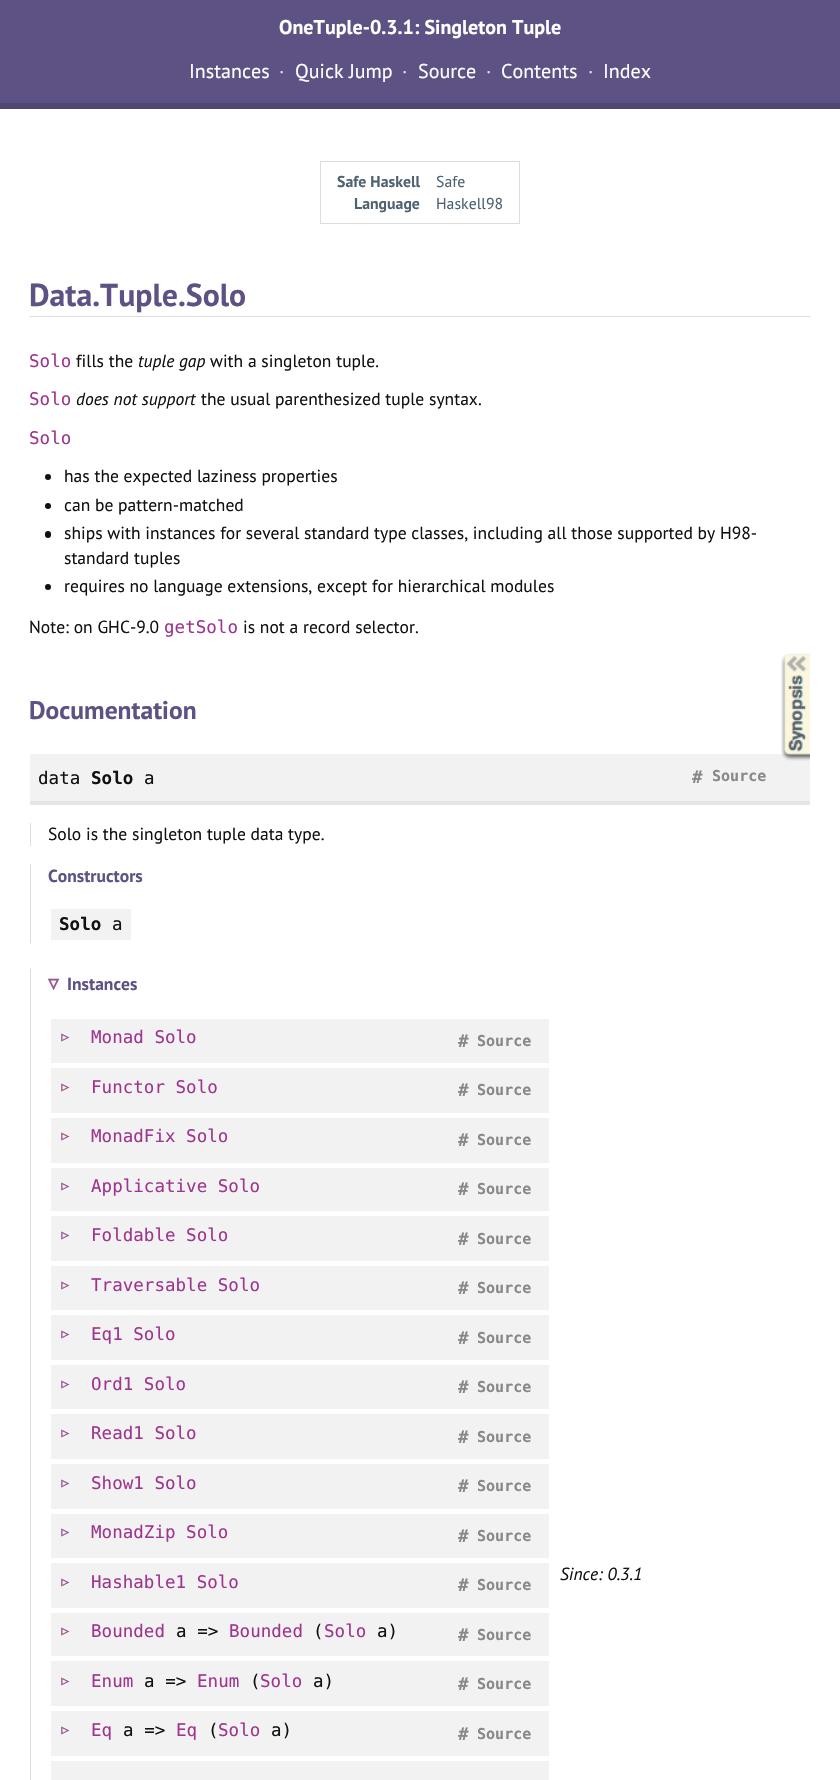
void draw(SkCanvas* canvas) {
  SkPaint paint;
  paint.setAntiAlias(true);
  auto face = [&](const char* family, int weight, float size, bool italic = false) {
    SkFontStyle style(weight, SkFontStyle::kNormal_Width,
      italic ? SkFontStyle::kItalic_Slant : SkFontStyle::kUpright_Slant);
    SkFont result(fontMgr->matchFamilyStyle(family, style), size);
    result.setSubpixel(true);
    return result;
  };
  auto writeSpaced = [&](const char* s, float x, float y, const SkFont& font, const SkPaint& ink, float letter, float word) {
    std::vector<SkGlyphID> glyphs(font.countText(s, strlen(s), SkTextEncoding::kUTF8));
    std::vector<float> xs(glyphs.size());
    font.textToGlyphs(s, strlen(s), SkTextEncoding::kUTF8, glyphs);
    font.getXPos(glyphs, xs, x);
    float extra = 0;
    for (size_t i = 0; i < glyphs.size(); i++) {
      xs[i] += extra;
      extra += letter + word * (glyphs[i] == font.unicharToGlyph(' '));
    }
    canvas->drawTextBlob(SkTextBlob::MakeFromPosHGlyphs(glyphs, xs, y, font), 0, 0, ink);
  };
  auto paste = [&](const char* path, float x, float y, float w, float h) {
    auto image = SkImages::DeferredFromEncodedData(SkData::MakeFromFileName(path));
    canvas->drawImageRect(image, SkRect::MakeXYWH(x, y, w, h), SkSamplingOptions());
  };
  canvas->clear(0xffffffff);
  paint.setColor(0xff5e5184);
  canvas->drawRect(SkRect::MakeXYWH(0, 0, 840, 103), paint);
  paint.setColor(0xff524673);
  canvas->drawRect(SkRect::MakeXYWH(0, 103, 840, 6), paint);
  paint.setStroke(true);
  paint.setStrokeWidth(1);
  paint.setColor(0xffdddddd);
  canvas->drawRect(SkRect::MakeXYWH(320.5f, 161.5f, 199, 62), paint);
  paint.setStroke(false);
  canvas->drawRect(SkRect::MakeXYWH(30, 316, 780, 1), paint);
  paint.setColor(0xff111111);
  canvas->drawCircle(48, 477, 3, paint);
  canvas->drawCircle(48, 506, 3, paint);
  canvas->drawRoundRect(SkRect::MakeXYWH(45, 531, 6, 7), 3, 3, paint);
  canvas->drawCircle(48, 587, 3, paint);
  {
    const struct { float x, y, w, h; SkColor color; } items[] = {
      {30, 754, 780, 47, 0xfff2f2f2},
      {30, 801, 780, 4, 0xffe5e5e5},
      {30, 823, 1, 23, 0xffdcdcdc},
      {30, 864, 1, 79, 0xffdcdcdc},
      {51, 909, 80, 31, 0xfff2f2f2},
      {30, 969, 1, 811, 0xffdcdcdc},
      {51, 1019, 498, 44, 0xfff2f2f2},
      {51, 1068, 498, 45, 0xfff2f2f2},
      {51, 1118, 498, 45, 0xfff2f2f2},
      {51, 1168, 498, 43, 0xfff2f2f2},
      {51, 1216, 498, 45, 0xfff2f2f2},
      {51, 1266, 498, 44, 0xfff2f2f2},
      {51, 1315, 498, 45, 0xfff2f2f2},
      {51, 1365, 498, 44, 0xfff2f2f2},
      {51, 1414, 498, 45, 0xfff2f2f2},
      {51, 1464, 498, 45, 0xfff2f2f2},
      {51, 1514, 498, 44, 0xfff2f2f2},
      {51, 1563, 498, 45, 0xfff2f2f2},
      {51, 1613, 498, 43, 0xfff2f2f2},
      {51, 1661, 498, 45, 0xfff2f2f2},
      {51, 1711, 498, 45, 0xfff2f2f2},
      {51, 1761, 498, 19, 0xfff2f2f2},
    };
    for (auto [x, y, w, h, color] : items) {
      paint.setColor(color);
      canvas->drawRect(SkRect::MakeXYWH(x, y, w, h), paint);
    }
  }
  paste("img/1.png", 781, 653, 29, 108);
  auto f0 = face("PT Sans", 700, 20);
  paint.setColor(0xffffffff);
  writeSpaced("OneTuple-0.3.1: Singleton Tuple", 279, 34, f0, paint, 0.03f, 0);
  auto f1 = face("PT Sans", 400, 20);
  writeSpaced("Instances", 189, 78, f1, paint, 0.03f, 0);
  paint.setColor(0xffdddddd);
  writeSpaced("·", 279, 78, f1, paint, 0.03f, 0);
  paint.setColor(0xffffffff);
  writeSpaced("Quick Jump", 295, 78, f1, paint, 0.03f, 0);
  paint.setColor(0xffdddddd);
  writeSpaced("·", 402, 78, f1, paint, 0.03f, 0);
  paint.setColor(0xffffffff);
  writeSpaced("Source", 418, 78, f1, paint, 0.03f, 0);
  paint.setColor(0xffdddddd);
  writeSpaced("·", 486, 78, f1, paint, 0.03f, 0);
  paint.setColor(0xffffffff);
  writeSpaced("Contents", 501, 78, f1, paint, 0.03f, 0);
  paint.setColor(0xffdddddd);
  writeSpaced("·", 588, 78, f1, paint, 0.03f, 0);
  paint.setColor(0xffffffff);
  writeSpaced("Index", 603, 78, f1, paint, 0.03f, 0);
  auto f2 = face("PT Sans", 700, 15.75f);
  paint.setColor(0xff4e6272);
  writeSpaced("Safe Haskell", 337, 187, f2, paint, 0.03f, 0);
  auto f3 = face("PT Sans", 400, 15.75f);
  writeSpaced("Safe", 436, 187, f3, paint, 0.03f, 0);
  writeSpaced("Language", 354, 209, f2, paint, 0.03f, 0);
  writeSpaced("Haskell98", 436, 209, f3, paint, 0.03f, 0);
  auto f4 = face("PT Sans", 700, 31.75f);
  paint.setColor(0xff5e5184);
  writeSpaced("Data.Tuple.Solo", 29, 306, f4, paint, 0.03f, 0);
  auto f5 = face("DejaVu Sans Mono", 400, 17.5f);
  paint.setColor(0xff9e358f);
  writeSpaced("Solo", 29, 367, f5, paint, 0.03f, 0);
  auto f6 = face("PT Sans", 400, 17.5f);
  paint.setColor(0xff111111);
  writeSpaced("fills the", 76, 367, f6, paint, 0.03f, 0);
  auto f7 = face("PT Sans", 400, 17.5f, true);
  writeSpaced("tuple gap", 138, 367, f7, paint, 0.03f, 0);
  writeSpaced("with a singleton tuple.", 210, 367, f6, paint, 0.03f, 0);
  paint.setColor(0xff9e358f);
  writeSpaced("Solo", 29, 405, f5, paint, 0.03f, 0);
  paint.setColor(0xff111111);
  writeSpaced("does not support", 76, 405, f7, paint, 0.03f, 0);
  writeSpaced("the usual parenthesized tuple syntax.", 201, 405, f6, paint, 0.03f, 0);
  paint.setColor(0xff9e358f);
  writeSpaced("Solo", 29, 444, f5, paint, 0.03f, 0);
  paint.setColor(0xff111111);
  {
    const struct { const char* s; float x, y; } items[] = {
      {"has the expected laziness properties", 64, 482},
      {"can be pattern-matched", 64, 511},
      {"ships with instances for several standard type classes, including all those supported by H98-", 64, 539},
      {"standard tuples", 64, 564},
      {"requires no language extensions, except for hierarchical modules", 64, 592},
      {"Note: on GHC-9.0", 29, 633},
    };
    for (auto [s, x, y] : items) {
      writeSpaced(s, x, y, f6, paint, 0.03f, 0);
    }
  }
  paint.setColor(0xff9e358f);
  writeSpaced("getSolo", 164, 633, f5, paint, 0.03f, 0);
  paint.setColor(0xff111111);
  writeSpaced("is not a record selector.", 243, 633, f6, paint, 0.03f, 0);
  auto f8 = face("PT Sans", 700, 25.5f);
  paint.setColor(0xff5e5184);
  writeSpaced("Documentation", 29, 719, f8, paint, 0.03f, 0);
  paint.setColor(0xff111111);
  writeSpaced("data", 38, 784, f5, paint, 0.03f, 0);
  auto f9 = face("DejaVu Sans Mono", 700, 17.5f);
  writeSpaced("Solo", 91, 784, f9, paint, 0.03f, 0);
  writeSpaced("a", 144, 784, f5, paint, 0.03f, 0);
  paint.setColor(0xff888888);
  writeSpaced("#", 692, 783, f9, paint, 0.03f, 0);
  auto f10 = face("DejaVu Sans Mono", 700, 15);
  writeSpaced("Source", 712, 781, f10, paint, 0.03f, 0);
  paint.setColor(0xff111111);
  writeSpaced("Solo is the singleton tuple data type.", 48, 840, f6, paint, 0.03f, 0);
  auto f11 = face("PT Sans", 700, 17.5f);
  paint.setColor(0xff5e5184);
  writeSpaced("Constructors", 48, 882, f11, paint, 0.03f, 0);
  paint.setColor(0xff111111);
  writeSpaced("Solo", 59, 930, f9, paint, 0.03f, 0);
  writeSpaced("a", 112, 930, f5, paint, 0.03f, 0);
  auto f12 = face("DejaVu Sans", 700, 21);
  paint.setColor(0xff9c5791);
  writeSpaced("▿", 48, 990, f12, paint, 0.03f, 0);
  paint.setColor(0xff5e5184);
  writeSpaced("Instances", 67, 990, f11, paint, 0.03f, 0);
  auto f13 = face("DejaVu Sans Mono", 400, 21);
  paint.setColor(0xff9c5791);
  writeSpaced("▹", 59, 1043, f13, paint, 0.03f, 0);
  paint.setColor(0xff9e358f);
  writeSpaced("Monad Solo", 91, 1043, f5, paint, 0.03f, 0);
  paint.setColor(0xff888888);
  writeSpaced("#", 458, 1047, f9, paint, 0.03f, 0);
  writeSpaced("Source", 477, 1046, f10, paint, 0.03f, 0);
  paint.setColor(0xff9c5791);
  writeSpaced("▹", 59, 1093, f13, paint, 0.03f, 0);
  paint.setColor(0xff9e358f);
  writeSpaced("Functor Solo", 91, 1093, f5, paint, 0.03f, 0);
  paint.setColor(0xff888888);
  writeSpaced("#", 458, 1096, f9, paint, 0.03f, 0);
  writeSpaced("Source", 477, 1095, f10, paint, 0.03f, 0);
  paint.setColor(0xff9c5791);
  writeSpaced("▹", 59, 1142, f13, paint, 0.03f, 0);
  paint.setColor(0xff9e358f);
  writeSpaced("MonadFix Solo", 91, 1142, f5, paint, 0.03f, 0);
  paint.setColor(0xff888888);
  writeSpaced("#", 458, 1146, f9, paint, 0.03f, 0);
  writeSpaced("Source", 477, 1145, f10, paint, 0.03f, 0);
  paint.setColor(0xff9c5791);
  writeSpaced("▹", 59, 1192, f13, paint, 0.03f, 0);
  paint.setColor(0xff9e358f);
  writeSpaced("Applicative Solo", 91, 1192, f5, paint, 0.03f, 0);
  paint.setColor(0xff888888);
  writeSpaced("#", 458, 1195, f9, paint, 0.03f, 0);
  writeSpaced("Source", 477, 1194, f10, paint, 0.03f, 0);
  paint.setColor(0xff9c5791);
  writeSpaced("▹", 59, 1241, f13, paint, 0.03f, 0);
  paint.setColor(0xff9e358f);
  writeSpaced("Foldable Solo", 91, 1241, f5, paint, 0.03f, 0);
  paint.setColor(0xff888888);
  writeSpaced("#", 458, 1245, f9, paint, 0.03f, 0);
  writeSpaced("Source", 477, 1244, f10, paint, 0.03f, 0);
  paint.setColor(0xff9c5791);
  writeSpaced("▹", 59, 1291, f13, paint, 0.03f, 0);
  paint.setColor(0xff9e358f);
  writeSpaced("Traversable Solo", 91, 1291, f5, paint, 0.03f, 0);
  paint.setColor(0xff888888);
  writeSpaced("#", 458, 1294, f9, paint, 0.03f, 0);
  writeSpaced("Source", 477, 1293, f10, paint, 0.03f, 0);
  paint.setColor(0xff9c5791);
  writeSpaced("▹", 59, 1340, f13, paint, 0.03f, 0);
  paint.setColor(0xff9e358f);
  writeSpaced("Eq1 Solo", 91, 1340, f5, paint, 0.03f, 0);
  paint.setColor(0xff888888);
  writeSpaced("#", 458, 1344, f9, paint, 0.03f, 0);
  writeSpaced("Source", 477, 1343, f10, paint, 0.03f, 0);
  paint.setColor(0xff9c5791);
  writeSpaced("▹", 59, 1390, f13, paint, 0.03f, 0);
  paint.setColor(0xff9e358f);
  writeSpaced("Ord1 Solo", 91, 1390, f5, paint, 0.03f, 0);
  paint.setColor(0xff888888);
  writeSpaced("#", 458, 1393, f9, paint, 0.03f, 0);
  writeSpaced("Source", 477, 1392, f10, paint, 0.03f, 0);
  paint.setColor(0xff9c5791);
  writeSpaced("▹", 59, 1439, f13, paint, 0.03f, 0);
  paint.setColor(0xff9e358f);
  writeSpaced("Read1 Solo", 91, 1439, f5, paint, 0.03f, 0);
  paint.setColor(0xff888888);
  writeSpaced("#", 458, 1443, f9, paint, 0.03f, 0);
  writeSpaced("Source", 477, 1442, f10, paint, 0.03f, 0);
  paint.setColor(0xff9c5791);
  writeSpaced("▹", 59, 1489, f13, paint, 0.03f, 0);
  paint.setColor(0xff9e358f);
  writeSpaced("Show1 Solo", 91, 1489, f5, paint, 0.03f, 0);
  paint.setColor(0xff888888);
  writeSpaced("#", 458, 1492, f9, paint, 0.03f, 0);
  writeSpaced("Source", 477, 1491, f10, paint, 0.03f, 0);
  paint.setColor(0xff9c5791);
  writeSpaced("▹", 59, 1538, f13, paint, 0.03f, 0);
  paint.setColor(0xff9e358f);
  writeSpaced("MonadZip Solo", 91, 1538, f5, paint, 0.03f, 0);
  paint.setColor(0xff888888);
  writeSpaced("#", 458, 1542, f9, paint, 0.03f, 0);
  writeSpaced("Source", 477, 1541, f10, paint, 0.03f, 0);
  paint.setColor(0xff9c5791);
  writeSpaced("▹", 59, 1588, f13, paint, 0.03f, 0);
  paint.setColor(0xff9e358f);
  writeSpaced("Hashable1 Solo", 91, 1588, f5, paint, 0.03f, 0);
  paint.setColor(0xff888888);
  writeSpaced("#", 458, 1591, f9, paint, 0.03f, 0);
  writeSpaced("Source", 477, 1590, f10, paint, 0.03f, 0);
  paint.setColor(0xff111111);
  writeSpaced("Since: 0.3.1", 560, 1580, f7, paint, 0.03f, 0);
  paint.setColor(0xff9c5791);
  writeSpaced("▹", 59, 1637, f13, paint, 0.03f, 0);
  paint.setColor(0xff9e358f);
  writeSpaced("Bounded", 91, 1637, f5, paint, 0.03f, 0);
  paint.setColor(0xff111111);
  writeSpaced("a =>", 176, 1637, f5, paint, 0.03f, 0);
  paint.setColor(0xff9e358f);
  writeSpaced("Bounded", 229, 1637, f5, paint, 0.03f, 0);
  paint.setColor(0xff111111);
  writeSpaced("(", 313, 1637, f5, paint, 0.03f, 0);
  paint.setColor(0xff9e358f);
  writeSpaced("Solo", 324, 1637, f5, paint, 0.03f, 0);
  paint.setColor(0xff111111);
  writeSpaced("a)", 377, 1637, f5, paint, 0.03f, 0);
  paint.setColor(0xff888888);
  writeSpaced("#", 458, 1641, f9, paint, 0.03f, 0);
  writeSpaced("Source", 477, 1640, f10, paint, 0.03f, 0);
  paint.setColor(0xff9c5791);
  writeSpaced("▹", 59, 1687, f13, paint, 0.03f, 0);
  paint.setColor(0xff9e358f);
  writeSpaced("Enum", 91, 1687, f5, paint, 0.03f, 0);
  paint.setColor(0xff111111);
  writeSpaced("a =>", 144, 1687, f5, paint, 0.03f, 0);
  paint.setColor(0xff9e358f);
  writeSpaced("Enum", 197, 1687, f5, paint, 0.03f, 0);
  paint.setColor(0xff111111);
  writeSpaced("(", 250, 1687, f5, paint, 0.03f, 0);
  paint.setColor(0xff9e358f);
  writeSpaced("Solo", 260, 1687, f5, paint, 0.03f, 0);
  paint.setColor(0xff111111);
  writeSpaced("a)", 313, 1687, f5, paint, 0.03f, 0);
  paint.setColor(0xff888888);
  writeSpaced("#", 458, 1690, f9, paint, 0.03f, 0);
  writeSpaced("Source", 477, 1689, f10, paint, 0.03f, 0);
  paint.setColor(0xff9c5791);
  writeSpaced("▹", 59, 1736, f13, paint, 0.03f, 0);
  paint.setColor(0xff9e358f);
  writeSpaced("Eq", 91, 1736, f5, paint, 0.03f, 0);
  paint.setColor(0xff111111);
  writeSpaced("a =>", 123, 1736, f5, paint, 0.03f, 0);
  paint.setColor(0xff9e358f);
  writeSpaced("Eq", 176, 1736, f5, paint, 0.03f, 0);
  paint.setColor(0xff111111);
  writeSpaced("(", 208, 1736, f5, paint, 0.03f, 0);
  paint.setColor(0xff9e358f);
  writeSpaced("Solo", 218, 1736, f5, paint, 0.03f, 0);
  paint.setColor(0xff111111);
  writeSpaced("a)", 271, 1736, f5, paint, 0.03f, 0);
  paint.setColor(0xff888888);
  writeSpaced("#", 458, 1740, f9, paint, 0.03f, 0);
  writeSpaced("Source", 477, 1739, f10, paint, 0.03f, 0);
}
